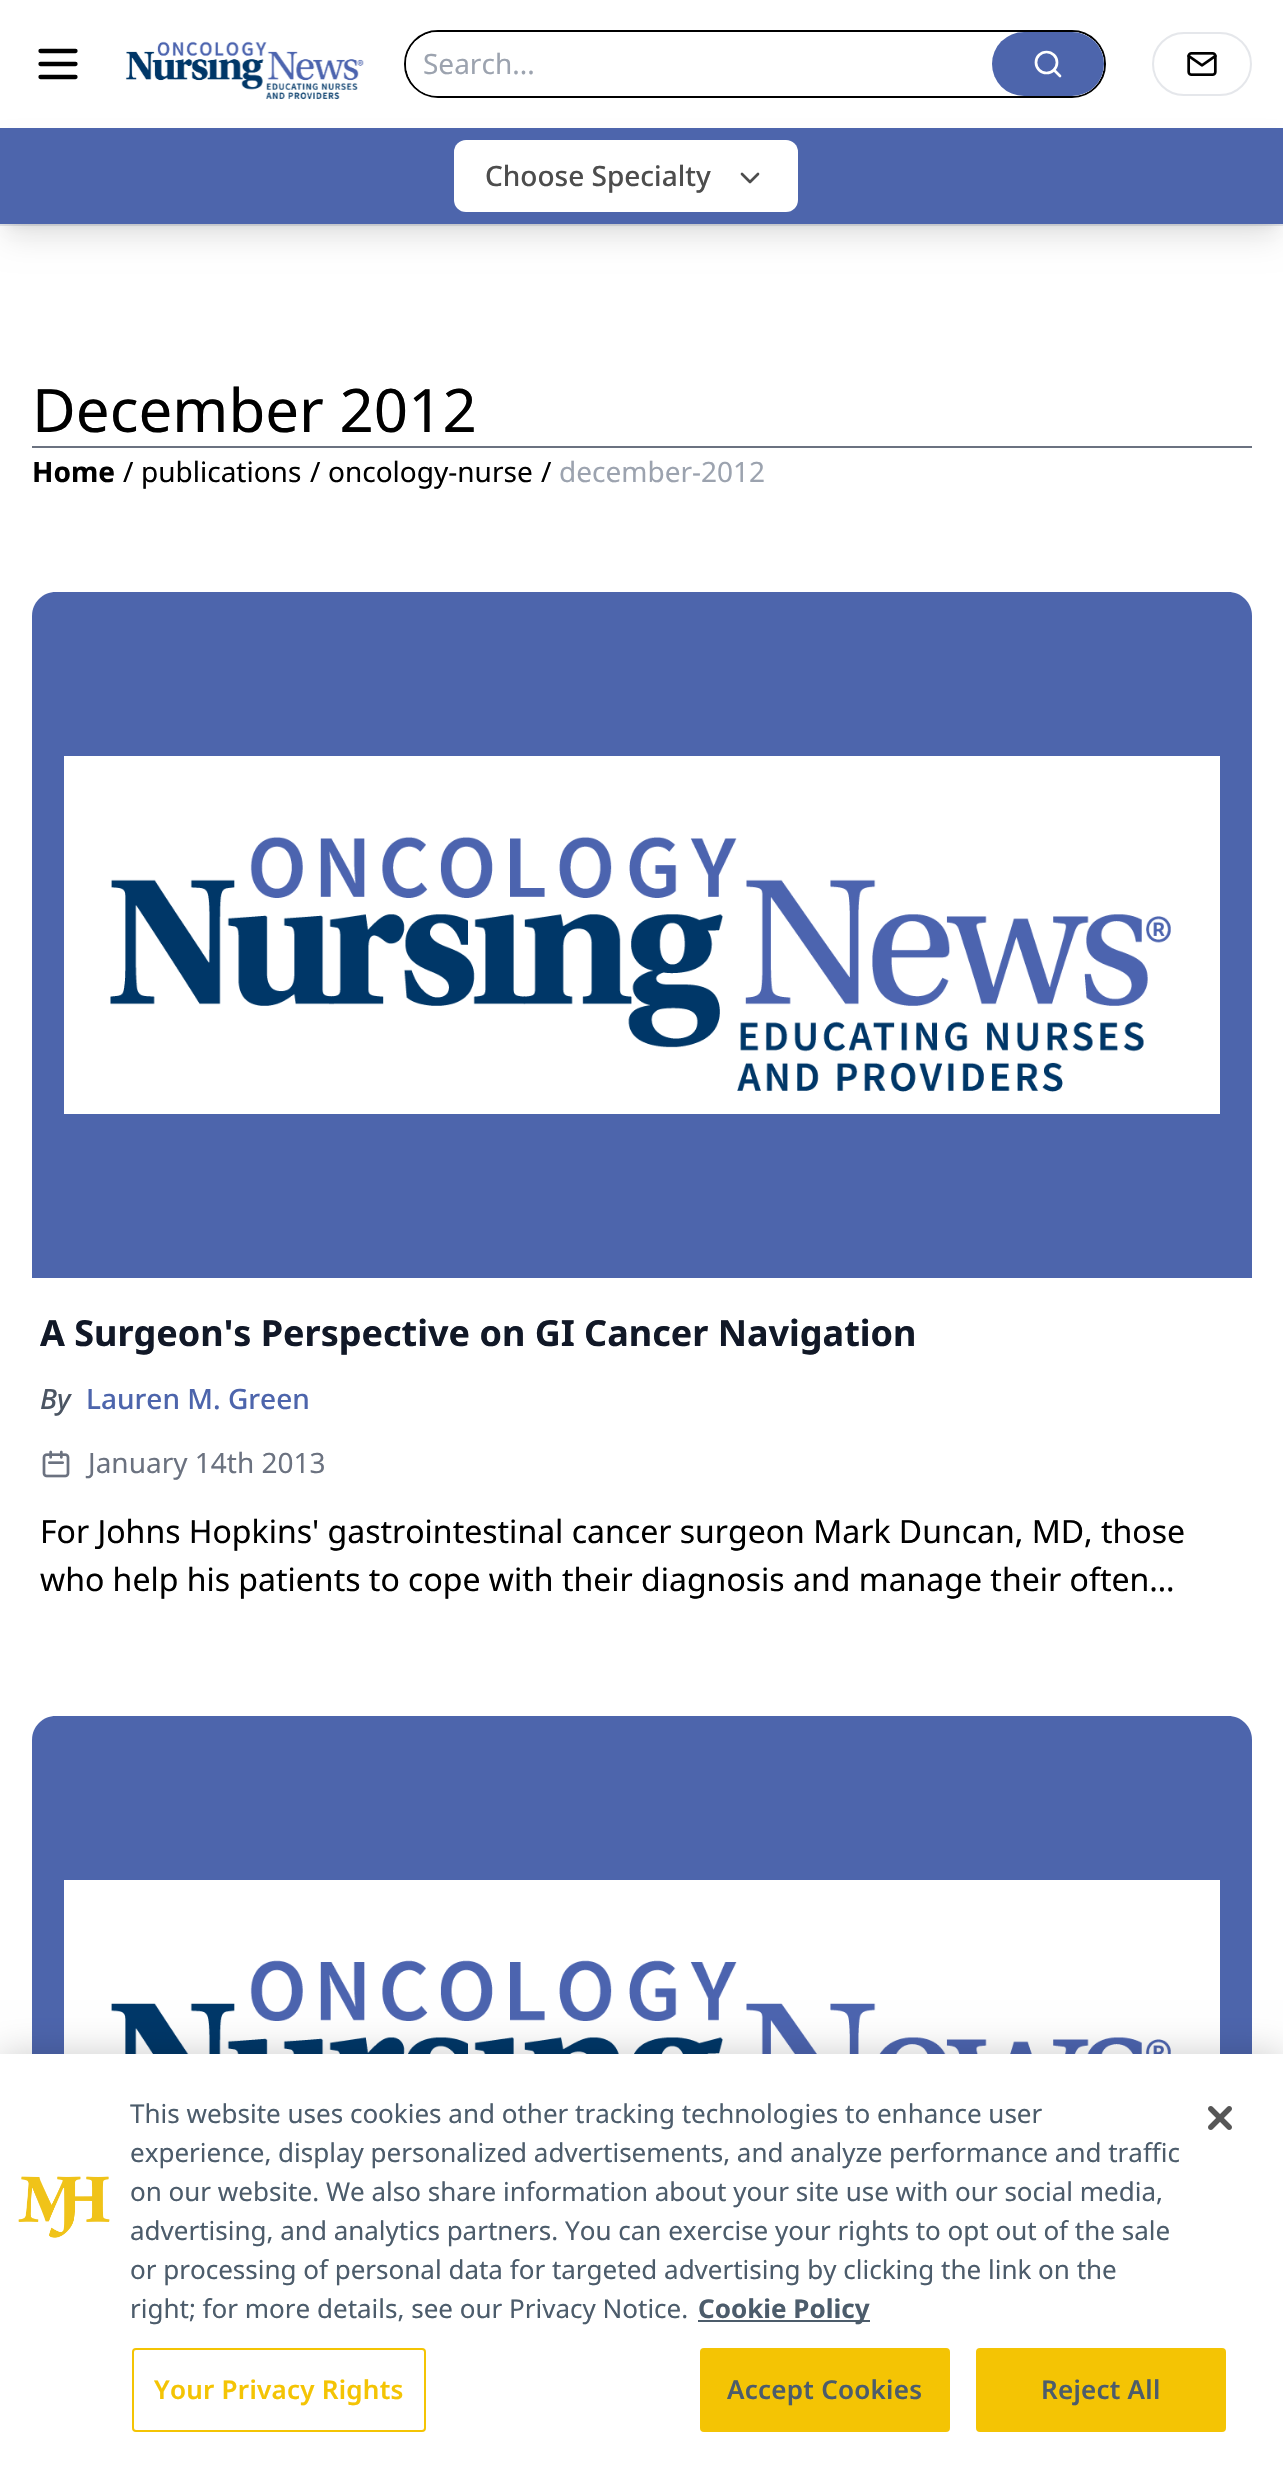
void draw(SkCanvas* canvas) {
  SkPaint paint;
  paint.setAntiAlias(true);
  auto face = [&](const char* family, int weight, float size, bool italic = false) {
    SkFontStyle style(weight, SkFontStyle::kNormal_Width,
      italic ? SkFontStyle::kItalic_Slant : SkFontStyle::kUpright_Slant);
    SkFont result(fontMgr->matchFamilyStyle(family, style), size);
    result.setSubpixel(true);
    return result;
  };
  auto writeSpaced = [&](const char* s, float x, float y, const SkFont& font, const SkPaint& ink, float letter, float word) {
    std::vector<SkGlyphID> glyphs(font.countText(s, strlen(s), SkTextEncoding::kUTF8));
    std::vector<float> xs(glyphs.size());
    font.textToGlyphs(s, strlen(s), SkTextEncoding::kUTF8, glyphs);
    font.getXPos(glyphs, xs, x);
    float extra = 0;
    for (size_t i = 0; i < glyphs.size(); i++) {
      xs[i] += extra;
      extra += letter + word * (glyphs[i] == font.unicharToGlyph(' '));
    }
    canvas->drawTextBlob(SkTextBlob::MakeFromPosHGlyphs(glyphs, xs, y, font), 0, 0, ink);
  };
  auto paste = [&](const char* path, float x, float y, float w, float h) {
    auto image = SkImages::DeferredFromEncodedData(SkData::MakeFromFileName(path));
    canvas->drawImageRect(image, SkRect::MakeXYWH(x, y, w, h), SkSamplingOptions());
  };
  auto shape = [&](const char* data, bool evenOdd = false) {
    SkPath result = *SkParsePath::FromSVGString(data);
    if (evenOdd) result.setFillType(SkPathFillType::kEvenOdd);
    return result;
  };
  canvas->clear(0xffffffff);
  paint.setColor(0xffe5e7eb);
  canvas->drawRect(SkRect::MakeXYWH(0, 224, 1283, 2), paint);
  paint.setStroke(true);
  paint.setStrokeWidth(4.3f);
  paint.setStrokeCap(SkPaint::kRound_Cap);
  paint.setStrokeJoin(SkPaint::kRound_Join);
  paint.setColor(0xff000000);
  canvas->drawPath(shape("M40.5 51H75.5M40.5 64H75.5M40.5 77H75.5"), paint);
  paste("img/1.png", 125, 41, 239, 59);
  paint.setStrokeWidth(2);
  paint.setStrokeCap(SkPaint::kButt_Cap);
  paint.setStrokeJoin(SkPaint::kMiter_Join);
  canvas->drawRoundRect(SkRect::MakeXYWH(405, 31, 700, 66), 33, 33, paint);
  paint.setStroke(false);
  paint.setColor(0xffffffff);
  canvas->drawRoundRect(SkRect::MakeXYWH(406, 32, 698, 64), 32, 32, paint);
  paint.setColor(0xff4d65ac);
  canvas->drawRoundRect(SkRect::MakeXYWH(992, 32, 112, 64), 32, 32, paint);
  paint.setStroke(true);
  paint.setStrokeWidth(2.7f);
  paint.setColor(0xffffffff);
  canvas->drawCircle(1046.5f, 62.5f, 10.5f, paint);
  paint.setStrokeCap(SkPaint::kRound_Cap);
  paint.setStrokeJoin(SkPaint::kRound_Join);
  canvas->drawPath(shape("M1060 76L1054 70"), paint);
  paint.setStrokeWidth(2);
  paint.setStrokeCap(SkPaint::kButt_Cap);
  paint.setStrokeJoin(SkPaint::kMiter_Join);
  paint.setColor(0xffe5e7eb);
  canvas->drawRoundRect(SkRect::MakeXYWH(1153, 33, 98, 62), 31, 31, paint);
  paste("img/2.png", 1187, 52, 30, 24);
  paint.setStroke(false);
  paint.setColor(0x1a000000);
  paint.setMaskFilter(SkMaskFilter::MakeBlur(kNormal_SkBlurStyle, 6));
  canvas->drawRect(SkRect::MakeXYWH(8, 144, 1268, 80), paint);
  paint.setMaskFilter(nullptr);
  paint.setMaskFilter(SkMaskFilter::MakeBlur(kNormal_SkBlurStyle, 15));
  canvas->drawRect(SkRect::MakeXYWH(6, 154, 1272, 84), paint);
  paint.setMaskFilter(nullptr);
  paint.setColor(0xff4d65ac);
  canvas->drawRect(SkRect::MakeXYWH(0, 128, 1283, 96), paint);
  paint.setColor(0xffffffff);
  canvas->drawRoundRect(SkRect::MakeXYWH(454, 140, 344, 72), 12, 12, paint);
  paint.setStroke(true);
  paint.setStrokeWidth(2.7f);
  paint.setStrokeCap(SkPaint::kRound_Cap);
  paint.setStrokeJoin(SkPaint::kRound_Join);
  paint.setColor(0xff4d4d4d);
  canvas->drawPath(shape("M742 174L750 182L758 174"), paint);
  paint.setStroke(false);
  paint.setColor(0xff6b7280);
  canvas->drawRect(SkRect::MakeXYWH(32, 446, 1220, 2), paint);
  paint.setColor(0xff4d65ac);
  canvas->drawPath(shape("M56 592H1228C1241.5 592 1252 602.5 1252 616V1278H32V616C32 602.5 42.5 592 56 592Z"), paint);
  paste("img/3.png", 64, 756, 1156, 358);
  paste("img/4.png", 42, 1450, 28, 28);
  canvas->drawPath(shape("M56 1716H1228C1241.5 1716 1252 1726.5 1252 1740V2402H32V1740C32 1726.5 42.5 1716 56 1716Z"), paint);
  paste("img/5.png", 64, 1880, 1156, 174);
  paint.setColor(0x33000000);
  paint.setMaskFilter(SkMaskFilter::MakeBlur(kNormal_SkBlurStyle, 18));
  canvas->drawRect(SkRect::MakeXYWH(0, 2054, 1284, 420), paint);
  paint.setMaskFilter(nullptr);
  paint.setColor(0xffffffff);
  canvas->drawRect(SkRect::MakeXYWH(0, 2054, 1283, 419), paint);
  paste("img/6.png", 18, 2176, 92, 62);
  paint.setColor(0xff4c5c6b);
  canvas->drawRect(SkRect::MakeXYWH(698, 2320, 172, 2), paint);
  paint.setStroke(true);
  paint.setStrokeWidth(2);
  paint.setStrokeCap(SkPaint::kButt_Cap);
  paint.setStrokeJoin(SkPaint::kMiter_Join);
  paint.setColor(0xfff4c404);
  canvas->drawRoundRect(SkRect::MakeXYWH(133, 2349, 292, 82), 3, 3, paint);
  paint.setStroke(false);
  canvas->drawRoundRect(SkRect::MakeXYWH(701, 2349, 248, 82), 3, 3, paint);
  paint.setStroke(true);
  canvas->drawRoundRect(SkRect::MakeXYWH(701, 2349, 248, 82), 3, 3, paint);
  paint.setStroke(false);
  canvas->drawRoundRect(SkRect::MakeXYWH(977, 2349, 248, 82), 3, 3, paint);
  paint.setStroke(true);
  canvas->drawRoundRect(SkRect::MakeXYWH(977, 2349, 248, 82), 3, 3, paint);
  paste("img/7.png", 1208, 2106, 24, 24);
  auto f0 = face("Noto Sans", 400, 28);
  paint.setStroke(false);
  paint.setColor(0xff9ca3af);
  canvas->drawString("Search...", 423, 74, f0, paint);
  auto f1 = face("Noto Sans", 500, 28);
  paint.setColor(0xff4d4d4d);
  canvas->drawString("Choose Specialty", 485, 186, f1, paint);
  auto f2 = face("Noto Sans", 400, 60);
  paint.setColor(0xff000000);
  canvas->drawString("December 2012", 32, 432, f2, paint);
  auto f3 = face("Noto Sans", 700, 28);
  canvas->drawString("Home", 32, 482, f3, paint);
  {
    const struct { const char* s; float x, y; } items[] = {
      {"/", 123, 482},
      {"publications", 141, 482},
      {"/", 310, 482},
      {"oncology-nurse", 328, 482},
      {"/", 541, 482},
    };
    for (auto [s, x, y] : items) {
      canvas->drawString(s, x, y, f0, paint);
    }
  }
  paint.setColor(0xff9ca3af);
  canvas->drawString("december-2012", 559, 482, f0, paint);
  auto f4 = face("Noto Sans", 700, 36);
  paint.setColor(0xff111827);
  canvas->drawString("A Surgeon's Perspective on GI Cancer Navigation", 40, 1346, f4, paint);
  auto f5 = face("Noto Sans", 500, 28, true);
  paint.setColor(0xff4b5563);
  canvas->drawString("By", 40, 1409, f5, paint);
  paint.setColor(0xff4d65ac);
  canvas->drawString("Lauren M. Green", 86, 1409, f1, paint);
  paint.setColor(0xff6b7280);
  canvas->drawString("January 14th 2013", 88, 1473, f0, paint);
  auto f6 = face("Noto Sans", 400, 32);
  paint.setColor(0xff000000);
  canvas->drawString("For Johns Hopkins' gastrointestinal cancer surgeon Mark Duncan, MD, those", 40, 1543, f6, paint);
  canvas->drawString("who help his patients to cope with their diagnosis and manage their often…", 40, 1591, f6, paint);
  auto f7 = face("Noto Sans", 400, 26);
  paint.setColor(0xff4c5c6b);
  {
    const struct { const char* s; float x, y; } items[] = {
      {"This website uses cookies and other tracking technologies to enhance user", 130, 2123},
      {"experience, display personalized advertisements, and analyze performance and traffic", 130, 2162},
      {"on our website. We also share information about your site use with our social media,", 130, 2201},
      {"advertising, and analytics partners. You can exercise your rights to opt out of the sale", 130, 2240},
      {"or processing of personal data for targeted advertising by clicking the link on the", 130, 2279},
      {"right; for more details, see our Privacy Notice.", 130, 2318},
    };
    for (auto [s, x, y] : items) {
      canvas->drawString(s, x, y, f7, paint);
    }
  }
  auto f8 = face("Noto Sans", 700, 26);
  canvas->drawString("Cookie Policy", 698, 2318, f8, paint);
  auto f9 = face("Noto Sans", 600, 26);
  paint.setColor(0xfff4c404);
  writeSpaced("Your Privacy Rights", 154, 2399, f9, paint, 0.25f, 0);
  paint.setColor(0xff4c5c6b);
  writeSpaced("Accept Cookies", 727, 2399, f9, paint, 0.25f, 0);
  writeSpaced("Reject All", 1041, 2399, f9, paint, 0.25f, 0);
}
